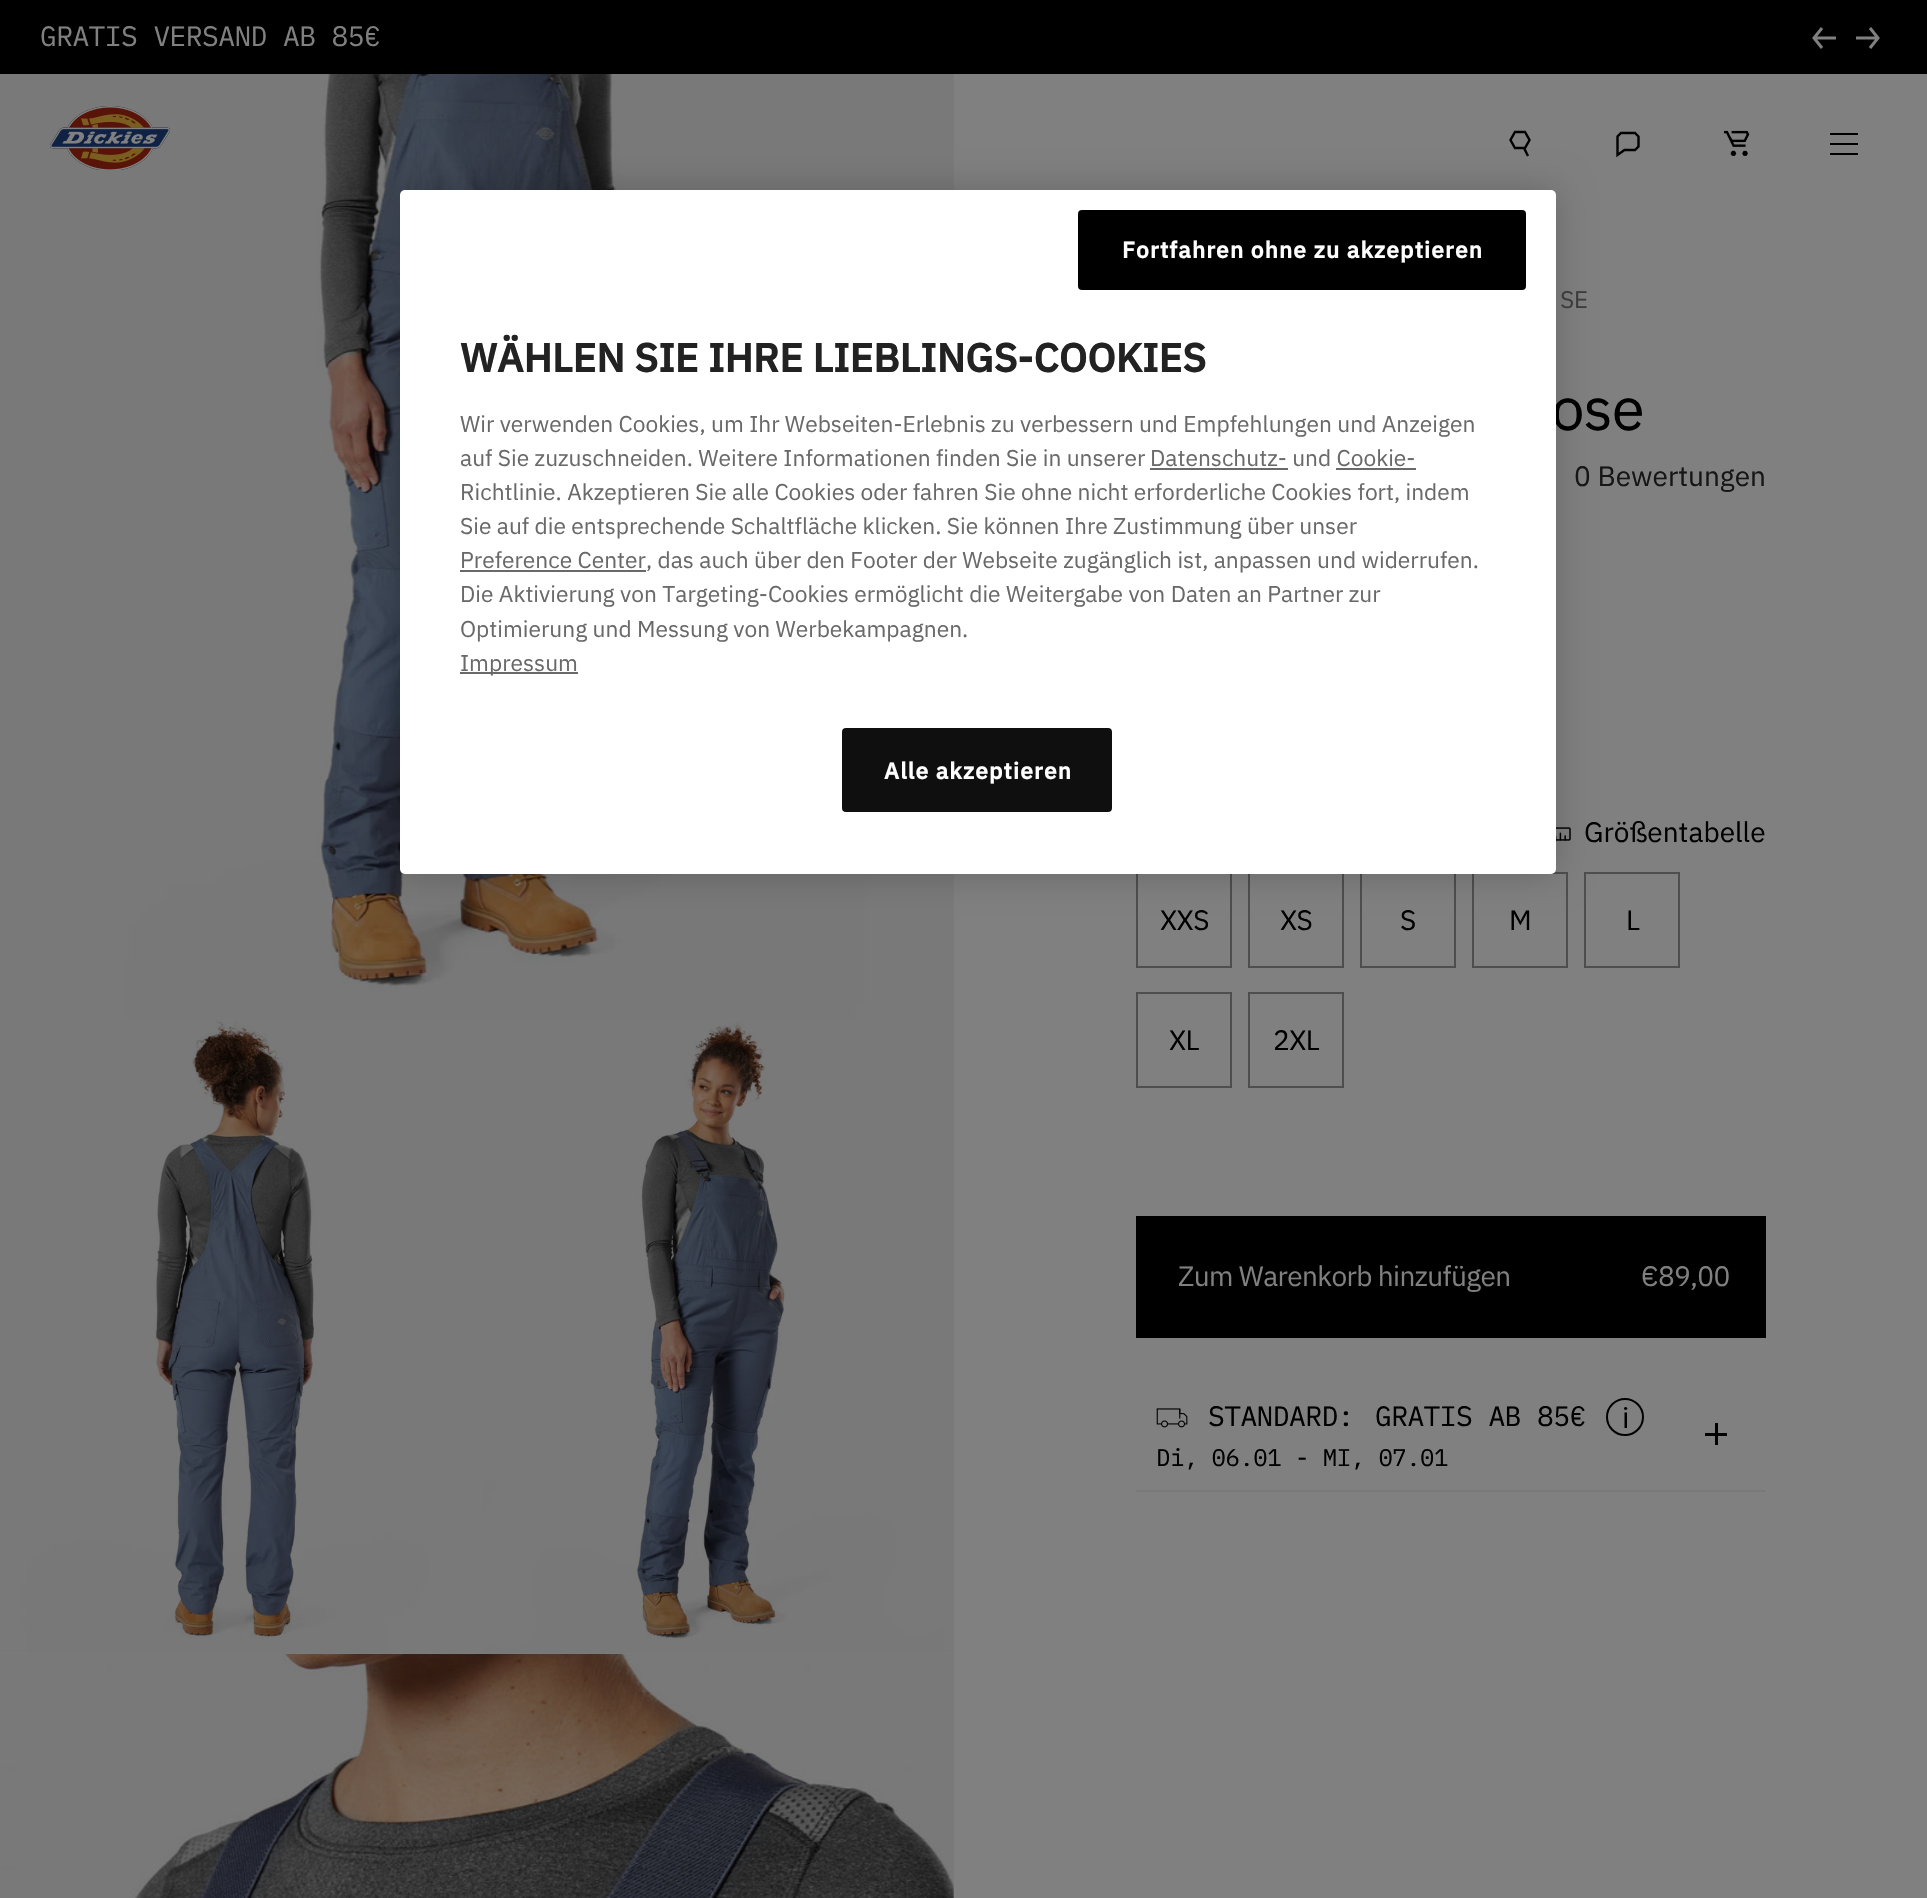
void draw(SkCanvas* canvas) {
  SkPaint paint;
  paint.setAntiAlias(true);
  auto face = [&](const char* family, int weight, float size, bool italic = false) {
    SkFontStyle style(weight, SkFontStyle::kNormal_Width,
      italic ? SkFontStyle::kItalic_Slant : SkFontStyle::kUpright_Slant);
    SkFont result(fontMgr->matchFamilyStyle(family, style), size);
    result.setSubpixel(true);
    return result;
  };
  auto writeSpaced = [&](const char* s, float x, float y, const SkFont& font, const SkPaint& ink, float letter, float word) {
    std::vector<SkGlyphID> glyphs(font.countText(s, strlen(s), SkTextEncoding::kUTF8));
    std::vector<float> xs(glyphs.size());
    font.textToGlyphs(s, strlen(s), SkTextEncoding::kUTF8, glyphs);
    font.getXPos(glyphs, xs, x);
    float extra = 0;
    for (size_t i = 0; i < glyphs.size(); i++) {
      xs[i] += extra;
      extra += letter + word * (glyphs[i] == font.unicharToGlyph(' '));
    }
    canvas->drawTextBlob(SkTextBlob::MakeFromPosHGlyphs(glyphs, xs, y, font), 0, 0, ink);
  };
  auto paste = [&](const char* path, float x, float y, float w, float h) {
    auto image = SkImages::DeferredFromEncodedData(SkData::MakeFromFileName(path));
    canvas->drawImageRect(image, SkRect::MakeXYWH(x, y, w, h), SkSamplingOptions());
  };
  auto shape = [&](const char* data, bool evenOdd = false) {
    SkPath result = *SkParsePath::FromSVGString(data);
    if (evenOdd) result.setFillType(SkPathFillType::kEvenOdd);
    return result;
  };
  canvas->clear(0xff808080);
  paint.setColor(0xff000000);
  canvas->drawRect(SkRect::MakeXYWH(0, 0, 1927, 74), paint);
  paint.setStroke(true);
  paint.setStrokeWidth(3);
  paint.setColor(0xff808080);
  canvas->drawPath(shape("M1822 48L1814 38L1822 28M1814 38H1836"), paint);
  canvas->drawPath(shape("M1870 48L1878 38L1870 28M1878 38H1856"), paint);
  paste("img/3.png", 0, 74, 954, 944);
  paste("img/1.png", 50, 106, 120, 64);
  paint.setStrokeWidth(2.4f);
  paint.setColor(0xff000000);
  canvas->drawPath(shape("M1515 148H1525L1529.5 140L1525 132H1515L1510.5 140ZM1528 156L1524 148"), paint);
  canvas->drawPath(shape("M1638.5 136.5L1635 133H1621L1617.5 136.5V155L1624.5 150H1635L1638.5 146.5Z"), paint);
  paste("img/2.png", 1724, 130, 26, 26);
  paint.setStroke(false);
  {
    const struct { float x, y, w, h; SkColor color; } items[] = {
      {1830, 143, 28, 2, 0xff000000},
      {1830, 153, 28, 2, 0xff000000},
      {1830, 133, 28, 2, 0xff000000},
    };
    for (auto [x, y, w, h, color] : items) {
      paint.setColor(color);
      canvas->drawRect(SkRect::MakeXYWH(x, y, w, h), paint);
    }
  }
  paste("img/7.png", 1556, 827, 15, 14);
  paint.setStroke(true);
  paint.setStrokeWidth(2);
  paint.setColor(0xff4e4e4e);
  canvas->drawRect(SkRect::MakeXYWH(1137, 873, 94, 94), paint);
  canvas->drawRect(SkRect::MakeXYWH(1249, 873, 94, 94), paint);
  canvas->drawRect(SkRect::MakeXYWH(1361, 873, 94, 94), paint);
  canvas->drawRect(SkRect::MakeXYWH(1473, 873, 94, 94), paint);
  canvas->drawRect(SkRect::MakeXYWH(1585, 873, 94, 94), paint);
  paint.setStroke(false);
  paint.setColor(0x33000000);
  paint.setMaskFilter(SkMaskFilter::MakeBlur(kNormal_SkBlurStyle, 18));
  canvas->drawRoundRect(SkRect::MakeXYWH(400, 190, 1156, 684), 5, 5, paint);
  paint.setMaskFilter(nullptr);
  paste("img/4.png", 0, 1018, 478, 636);
  paste("img/5.png", 478, 1018, 476, 636);
  paste("img/6.png", 0, 1654, 954, 244);
  paint.setStroke(true);
  paint.setColor(0xff4e4e4e);
  canvas->drawRect(SkRect::MakeXYWH(1137, 993, 94, 94), paint);
  canvas->drawRect(SkRect::MakeXYWH(1249, 993, 94, 94), paint);
  paint.setStroke(false);
  paint.setColor(0xff000000);
  canvas->drawRect(SkRect::MakeXYWH(1136, 1216, 630, 122), paint);
  paint.setColor(0xff797979);
  canvas->drawRect(SkRect::MakeXYWH(1136, 1490, 630, 2), paint);
  paste("img/8.png", 1156, 1408, 32, 20);
  paint.setColor(0xff000000);
  canvas->drawPath(shape("M1624.5 1428V1412.5H1627V1428ZM1625.5 1410C1623.5 1410 1623.5 1407 1625.5 1407C1628 1407 1628 1410 1625.5 1410Z"), paint);
  paint.setStroke(true);
  canvas->drawCircle(1625, 1417, 18, paint);
  paint.setStroke(false);
  canvas->drawRect(SkRect::MakeXYWH(1705, 1433, 22, 3), paint);
  canvas->drawRect(SkRect::MakeXYWH(1715, 1423, 3, 22), paint);
  auto f0 = face("IBM Plex Mono", 400, 28);
  paint.setColor(0xff808080);
  writeSpaced("GRATIS VERSAND AB 85€", 40, 46, f0, paint, -0.6f, 0);
  auto f1 = face("IBM Plex Mono", 400, 24);
  paint.setColor(0xff3b3b3b);
  writeSpaced("SE", 1560, 308, f1, paint, -0.5f, 0);
  auto f2 = face("IBM Plex Sans", 400, 60);
  paint.setColor(0xff000000);
  writeSpaced("ose", 1551, 430, f2, paint, -1, 0);
  paint.setColor(0xffffffff);
  canvas->drawRoundRect(SkRect::MakeXYWH(400, 190, 1156, 684), 5, 5, paint);
  paint.setColor(0xff000000);
  canvas->drawRoundRect(SkRect::MakeXYWH(1078, 210, 448, 80), 4, 4, paint);
  auto f3 = face("IBM Plex Sans", 700, 22.75f);
  paint.setColor(0xffffffff);
  writeSpaced("Fortfahren ohne zu akzeptieren", 1122, 258, f3, paint, 1.15f, 0);
  paint.setColor(0xff0f0f0f);
  canvas->drawRoundRect(SkRect::MakeXYWH(843, 729, 268, 82), 3, 3, paint);
  paint.setStroke(true);
  canvas->drawRoundRect(SkRect::MakeXYWH(843, 729, 268, 82), 3, 3, paint);
  paint.setStroke(false);
  paint.setColor(0xffffffff);
  writeSpaced("Alle akzeptieren", 884, 779, f3, paint, 1.15f, 0);
  paint.setColor(0xff696969);
  canvas->drawRect(SkRect::MakeXYWH(460, 672, 118, 2), paint);
  auto f4 = face("IBM Plex Sans", 400, 22.75f);
  {
    const struct { const char* s; float x, y; } items[] = {
      {"Impressum", 460, 671},
      {"Optimierung und Messung von Werbekampagnen.", 460, 637},
      {"Die Aktivierung von Targeting-Cookies ermöglicht die Weitergabe von Daten an Partner zur", 460, 602},
    };
    for (auto [s, x, y] : items) {
      canvas->drawString(s, x, y, f4, paint);
    }
  }
  canvas->drawRect(SkRect::MakeXYWH(460, 570, 186, 2), paint);
  {
    const struct { const char* s; float x, y; } items[] = {
      {"Preference Center, das auch über den Footer der Webseite zugänglich ist, anpassen und widerrufen.", 460, 568},
      {"Sie auf die entsprechende Schaltfläche klicken. Sie können Ihre Zustimmung über unser", 460, 534},
      {"Richtlinie. Akzeptieren Sie alle Cookies oder fahren Sie ohne nicht erforderliche Cookies fort, indem", 460, 500},
    };
    for (auto [s, x, y] : items) {
      canvas->drawString(s, x, y, f4, paint);
    }
  }
  canvas->drawRect(SkRect::MakeXYWH(1336, 468, 80, 2), paint);
  canvas->drawString("Datenschutz- und Cookie-", 1150, 466, f4, paint);
  canvas->drawRect(SkRect::MakeXYWH(1150, 468, 138, 2), paint);
  canvas->drawString("auf Sie zuzuschneiden. Weitere Informationen finden Sie in unserer", 460, 466, f4, paint);
  canvas->drawString("Wir verwenden Cookies, um Ihr Webseiten-Erlebnis zu verbessern und Empfehlungen und Anzeigen", 460, 432, f4, paint);
  auto f5 = face("IBM Plex Sans", 700, 40);
  paint.setColor(0xff222222);
  canvas->drawString("WÄHLEN SIE IHRE LIEBLINGS-COOKIES", 460, 372, f5, paint);
  auto f6 = face("IBM Plex Sans", 400, 28);
  paint.setColor(0xff161616);
  canvas->drawString("0 Bewertungen", 1574, 486, f6, paint);
  paint.setColor(0xff000000);
  canvas->drawString("Größentabelle", 1584, 842, f6, paint);
  {
    const struct { const char* s; float x, y; } items[] = {
      {"XXS", 1160, 930},
      {"XS", 1280, 930},
      {"S", 1400, 930},
      {"M", 1509, 930},
      {"L", 1626, 930},
      {"XL", 1169, 1050},
      {"2XL", 1273, 1050},
    };
    for (auto [s, x, y] : items) {
      writeSpaced(s, x, y, f6, paint, -0.6f, 0);
    }
  }
  paint.setColor(0xff808080);
  writeSpaced("Zum Warenkorb hinzufügen", 1178, 1286, f6, paint, -0.6f, 0);
  writeSpaced("€89,00", 1641, 1286, f6, paint, -0.6f, 0);
  paint.setColor(0xff000000);
  writeSpaced("STANDARD:", 1208, 1426, f0, paint, -0.6f, 0);
  writeSpaced("GRATIS AB 85€", 1375, 1426, f0, paint, -0.6f, 0);
  writeSpaced("Di, 06.01 - MI, 07.01", 1156, 1466, f1, paint, -0.5f, 0);
}
